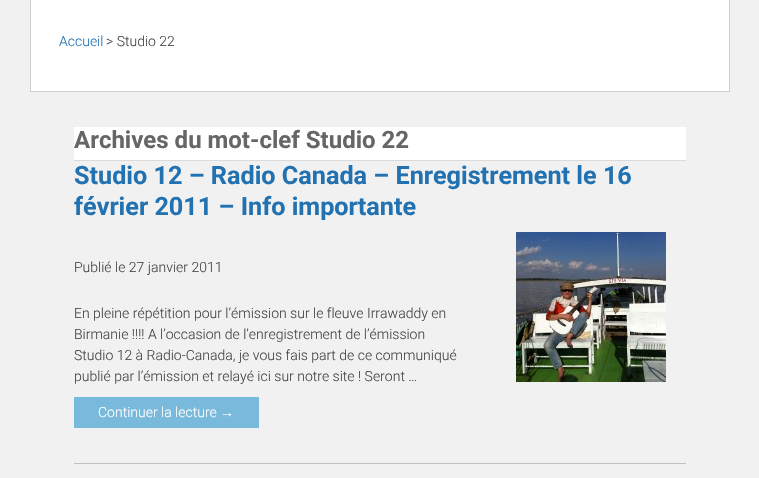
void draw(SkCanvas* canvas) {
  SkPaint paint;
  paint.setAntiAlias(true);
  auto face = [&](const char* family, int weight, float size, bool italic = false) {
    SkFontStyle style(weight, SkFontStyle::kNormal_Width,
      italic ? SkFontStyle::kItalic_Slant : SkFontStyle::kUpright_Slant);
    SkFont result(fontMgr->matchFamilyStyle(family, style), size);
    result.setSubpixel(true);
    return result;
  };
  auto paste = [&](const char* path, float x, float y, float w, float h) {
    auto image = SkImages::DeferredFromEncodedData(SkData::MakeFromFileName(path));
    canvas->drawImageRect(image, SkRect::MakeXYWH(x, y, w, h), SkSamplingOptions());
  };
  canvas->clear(0xfff1f1f1);
  paint.setColor(0xffffffff);
  canvas->drawRect(SkRect::MakeXYWH(30.5f, -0.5f, 699, 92), paint);
  paint.setStroke(true);
  paint.setStrokeWidth(1);
  paint.setColor(0xffccd0d4);
  canvas->drawRect(SkRect::MakeXYWH(30.5f, -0.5f, 699, 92), paint);
  paint.setStroke(false);
  {
    const struct { float x, y, w, h; SkColor color; } items[] = {
      {74, 127, 612, 33, 0xffffffff},
      {74, 160, 612, 1, 0xffdadada},
      {74, 463, 612, 1, 0xffc0c0c0},
      {74, 397, 185, 31, 0xff79b9dc},
    };
    for (auto [x, y, w, h, color] : items) {
      paint.setColor(color);
      canvas->drawRect(SkRect::MakeXYWH(x, y, w, h), paint);
    }
  }
  paste("img/1.png", 516, 232, 150, 150);
  auto f0 = face("Roboto", 300, 14);
  paint.setColor(0xff2271b1);
  canvas->drawString("Accueil", 59, 46, f0, paint);
  paint.setColor(0xff444444);
  canvas->drawString("> Studio 22", 106, 46, f0, paint);
  auto f1 = face("Roboto", 700, 24);
  paint.setColor(0xff666666);
  canvas->drawString("Archives du mot-clef Studio 22", 74, 148, f1, paint);
  auto f2 = face("Roboto", 700, 25.2f);
  paint.setColor(0xff2271b1);
  canvas->drawString("Studio 12 – Radio Canada – Enregistrement le 16", 74, 184, f2, paint);
  canvas->drawString("février 2011 – Info importante", 74, 215, f2, paint);
  paint.setColor(0xff444444);
  {
    const struct { const char* s; float x, y; } items[] = {
      {"Publié le 27 janvier 2011", 74, 272},
      {"En pleine répétition pour l’émission sur le fleuve Irrawaddy en", 74, 318},
      {"Birmanie !!!! A l’occasion de l’enregistrement de l’émission", 74, 339},
      {"Studio 12 à Radio-Canada, je vous fais part de ce communiqué", 74, 360},
      {"publié par l’émission et relayé ici sur notre site ! Seront …", 74, 381},
    };
    for (auto [s, x, y] : items) {
      canvas->drawString(s, x, y, f0, paint);
    }
  }
  paint.setColor(0xffffffff);
  canvas->drawString("Continuer la lecture", 98, 417, f0, paint);
  auto f3 = face("Liberation Sans", 400, 14);
  canvas->drawString("→", 220, 417, f3, paint);
}
